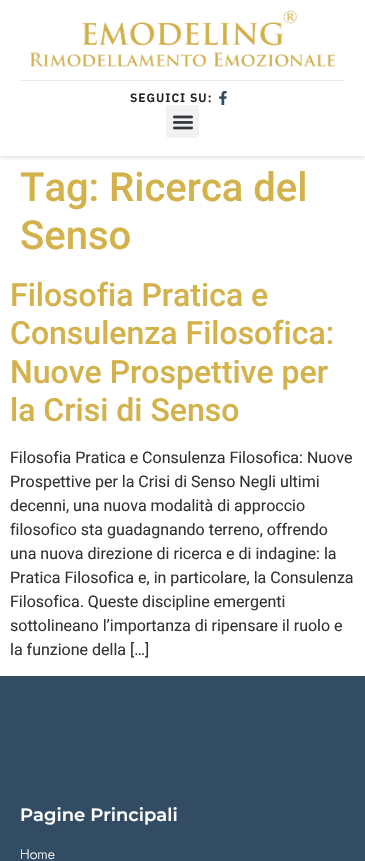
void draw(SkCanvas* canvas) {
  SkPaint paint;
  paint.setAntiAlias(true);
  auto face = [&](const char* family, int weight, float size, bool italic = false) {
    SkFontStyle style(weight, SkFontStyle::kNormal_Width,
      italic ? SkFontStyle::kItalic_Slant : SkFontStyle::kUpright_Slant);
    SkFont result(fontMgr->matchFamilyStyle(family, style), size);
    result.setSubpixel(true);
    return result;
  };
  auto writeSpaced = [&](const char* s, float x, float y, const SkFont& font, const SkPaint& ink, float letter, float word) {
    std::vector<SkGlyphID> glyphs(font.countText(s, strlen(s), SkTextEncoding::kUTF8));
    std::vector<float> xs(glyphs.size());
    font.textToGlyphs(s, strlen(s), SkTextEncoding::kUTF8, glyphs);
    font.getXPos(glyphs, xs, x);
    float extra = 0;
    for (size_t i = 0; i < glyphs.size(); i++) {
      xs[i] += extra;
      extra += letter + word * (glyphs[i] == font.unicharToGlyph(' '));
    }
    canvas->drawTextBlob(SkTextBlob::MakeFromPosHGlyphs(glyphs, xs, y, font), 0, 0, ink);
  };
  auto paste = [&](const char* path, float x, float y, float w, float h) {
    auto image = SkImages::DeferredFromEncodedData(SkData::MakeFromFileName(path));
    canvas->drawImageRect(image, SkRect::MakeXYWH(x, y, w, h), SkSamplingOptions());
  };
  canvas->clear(0xffffffff);
  canvas->save();
  canvas->clipRect(SkRect::MakeXYWH(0, 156, 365, 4));
  paint.setColor(0x26000000);
  paint.setMaskFilter(SkMaskFilter::MakeBlur(kNormal_SkBlurStyle, 2.5f));
  canvas->drawRect(SkRect::MakeXYWH(0, 1, 365, 156), paint);
  paint.setMaskFilter(nullptr);
  canvas->restore();
  paste("img/1.png", 30, 10, 306, 57);
  paint.setColor(0xffe7ebf0);
  canvas->drawRect(SkRect::MakeXYWH(20, 80, 325, 1), paint);
  paste("img/2.png", 219, 91, 8, 14);
  paint.setColor(0xfff2f2f2);
  canvas->drawRoundRect(SkRect::MakeXYWH(166, 105, 33, 33), 3, 3, paint);
  paste("img/3.png", 172, 115, 22, 15);
  paint.setColor(0xff314c63);
  canvas->drawRect(SkRect::MakeXYWH(0, 676, 365, 185), paint);
  auto f0 = face("IBM Plex Sans", 600, 12);
  paint.setColor(0xff222222);
  writeSpaced("SEGUICI SU:", 130, 102, f0, paint, 1, 0);
  auto f1 = face("Roboto", 500, 40);
  paint.setColor(0xffd3b14b);
  canvas->drawString("Tag: Ricerca del", 20, 201, f1, paint);
  canvas->drawString("Senso", 20, 249, f1, paint);
  auto f2 = face("Roboto", 500, 32);
  {
    const struct { const char* s; float x, y; } items[] = {
      {"Filosofia Pratica e", 10, 306},
      {"Consulenza Filosofica:", 10, 344},
      {"Nuove Prospettive per", 10, 383},
      {"la Crisi di Senso", 10, 421},
    };
    for (auto [s, x, y] : items) {
      canvas->drawString(s, x, y, f2, paint);
    }
  }
  auto f3 = face("Roboto", 400, 16);
  paint.setColor(0xff333333);
  {
    const struct { const char* s; float x, y; } items[] = {
      {"Filosofia Pratica e Consulenza Filosofica: Nuove", 10, 463},
      {"Prospettive per la Crisi di Senso Negli ultimi", 10, 487},
      {"decenni, una nuova modalità di approccio", 10, 511},
      {"filosofico sta guadagnando terreno, offrendo", 10, 535},
      {"una nuova direzione di ricerca e di indagine: la", 10, 559},
      {"Pratica Filosofica e, in particolare, la Consulenza", 10, 583},
      {"Filosofica. Queste discipline emergenti", 10, 607},
      {"sottolineano l’importanza di ripensare il ruolo e", 10, 631},
      {"la funzione della […]", 10, 655},
    };
    for (auto [s, x, y] : items) {
      canvas->drawString(s, x, y, f3, paint);
    }
  }
  auto f4 = face("Montserrat", 600, 18);
  paint.setColor(0xffffffff);
  canvas->drawString("Pagine Principali", 20, 821, f4, paint);
  auto f5 = face("Jost", 300, 14);
  canvas->drawString("Home", 20, 859, f5, paint);
}
